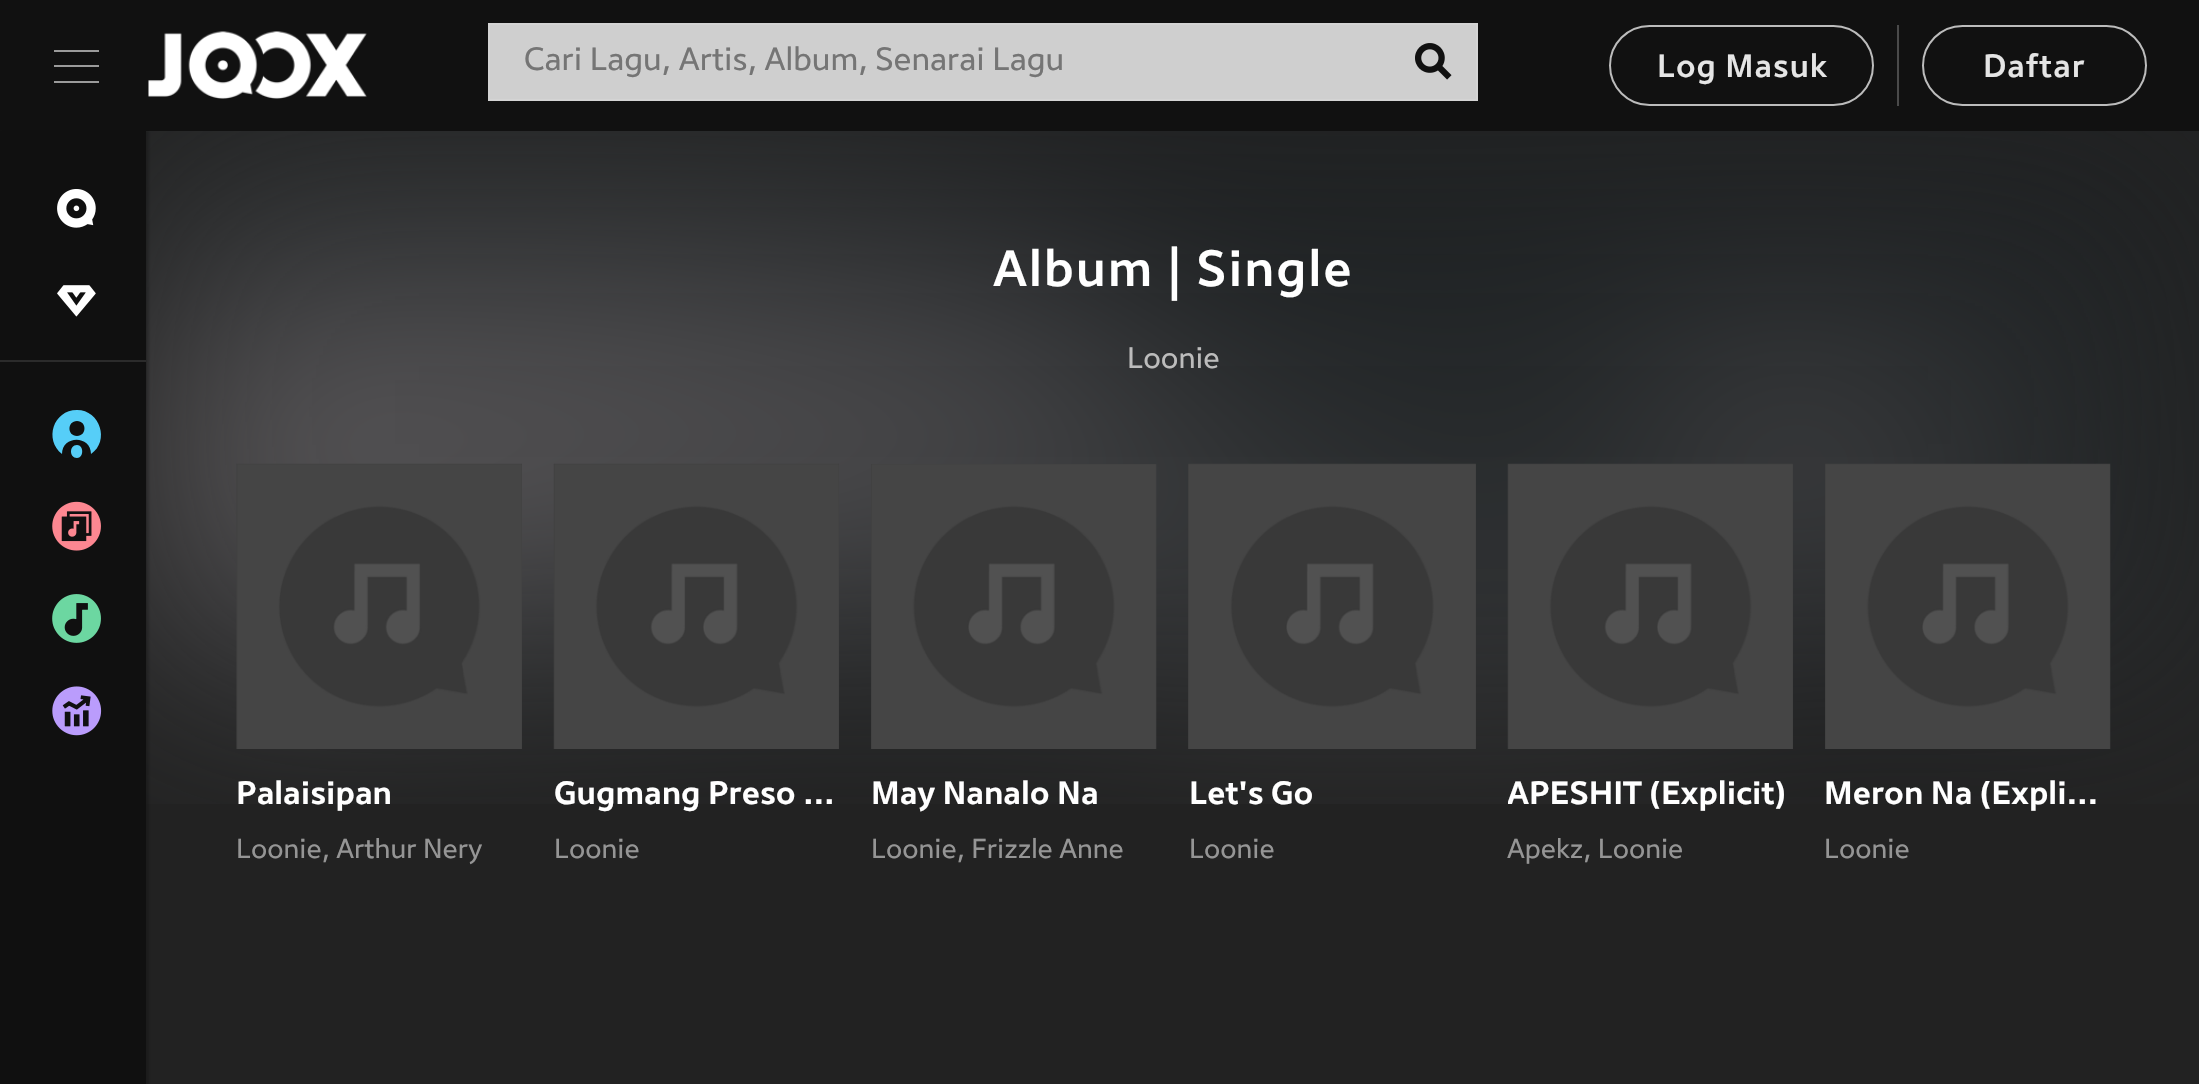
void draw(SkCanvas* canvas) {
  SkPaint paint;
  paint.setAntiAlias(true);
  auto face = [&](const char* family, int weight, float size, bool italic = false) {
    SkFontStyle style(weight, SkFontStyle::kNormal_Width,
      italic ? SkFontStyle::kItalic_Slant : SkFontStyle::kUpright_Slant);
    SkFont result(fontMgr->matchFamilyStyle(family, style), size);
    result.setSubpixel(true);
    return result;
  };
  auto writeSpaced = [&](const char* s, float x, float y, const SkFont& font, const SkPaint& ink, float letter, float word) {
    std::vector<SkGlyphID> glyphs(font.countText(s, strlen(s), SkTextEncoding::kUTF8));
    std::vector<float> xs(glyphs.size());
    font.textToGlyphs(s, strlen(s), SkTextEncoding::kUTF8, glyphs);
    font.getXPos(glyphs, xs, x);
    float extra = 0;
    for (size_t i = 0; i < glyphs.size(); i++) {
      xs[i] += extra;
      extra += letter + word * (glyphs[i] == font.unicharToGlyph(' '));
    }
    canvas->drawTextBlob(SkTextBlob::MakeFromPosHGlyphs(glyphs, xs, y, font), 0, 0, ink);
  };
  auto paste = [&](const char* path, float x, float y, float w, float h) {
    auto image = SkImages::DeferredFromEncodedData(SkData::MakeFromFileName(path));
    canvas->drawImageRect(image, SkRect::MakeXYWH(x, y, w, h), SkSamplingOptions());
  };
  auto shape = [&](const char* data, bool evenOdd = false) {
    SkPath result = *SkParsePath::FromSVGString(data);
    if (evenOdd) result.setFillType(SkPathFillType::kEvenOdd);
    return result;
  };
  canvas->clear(0xff222222);
  {
    const struct { float x, y, w, h; SkColor color; } items[] = {
      {0, 0, 2199, 131, 0xff111111},
      {54, 50, 45, 2, 0xff9b9b9b},
      {54, 65, 45, 2, 0xff9b9b9b},
      {54, 81, 45, 2, 0xff9b9b9b},
    };
    for (auto [x, y, w, h, color] : items) {
      paint.setColor(color);
      canvas->drawRect(SkRect::MakeXYWH(x, y, w, h), paint);
    }
  }
  paste("img/1.png", 148, 31, 219, 68);
  paint.setColor(0xffcfcfcf);
  canvas->drawRect(SkRect::MakeXYWH(489, 24, 988, 76), paint);
  paint.setStroke(true);
  paint.setStrokeWidth(2);
  paint.setColor(0xffd4d4d4);
  canvas->drawRect(SkRect::MakeXYWH(489, 24, 988, 76), paint);
  paste("img/2.png", 1415, 43, 37, 37);
  paint.setColor(0xffbcbcbc);
  canvas->drawRoundRect(SkRect::MakeXYWH(1610, 26, 263, 79), 39.5f, 39.5f, paint);
  paint.setStroke(false);
  paint.setColor(0xff4a4a4a);
  canvas->drawRect(SkRect::MakeXYWH(1897, 25, 2, 81), paint);
  paint.setStroke(true);
  paint.setColor(0xffbcbcbc);
  canvas->drawRoundRect(SkRect::MakeXYWH(1923, 26, 223, 79), 39.5f, 39.5f, paint);
  paste("img/8.png", 146, 131, 2053, 673);
  paint.setStroke(false);
  paint.setColor(0x33000000);
  paint.setMaskFilter(SkMaskFilter::MakeBlur(kNormal_SkBlurStyle, 1));
  canvas->drawRect(SkRect::MakeXYWH(2, 131, 147, 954), paint);
  paint.setMaskFilter(nullptr);
  paint.setColor(0xff101010);
  canvas->drawRect(SkRect::MakeXYWH(0, 131, 146, 953), paint);
  paint.setColor(0xff2b2b2b);
  canvas->drawRect(SkRect::MakeXYWH(0, 360, 146, 2), paint);
  paste("img/3.png", 57, 189, 39, 39);
  paste("img/4.png", 57, 285, 39, 32);
  paint.setColor(0xff56cef8);
  canvas->drawPath(shape("M77 410C53 410 44 440 62 454C62 435 91 435 91 454C110 441 100 410 77 410ZM77 436C67 436 67 421 77 421C87 421 87 436 77 436ZM77 445C69 445 69 458 77 458C84 458 84 445 77 445Z"), paint);
  paste("img/5.png", 52, 501, 49, 50);
  paste("img/6.png", 52, 594, 49, 49);
  paste("img/7.png", 52, 686, 50, 50);
  paste("img/9.png", 236, 463, 286, 286);
  paste("img/10.png", 553, 463, 286, 286);
  paste("img/11.png", 871, 464, 286, 285);
  paste("img/12.png", 1188, 463, 288, 286);
  paste("img/13.png", 1507, 463, 286, 286);
  paste("img/14.png", 1825, 463, 286, 286);
  auto f0 = face("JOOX", 400, 31.5f);
  paint.setColor(0xff757575);
  canvas->drawString("Cari Lagu, Artis, Album, Senarai Lagu", 524, 70, f0, paint);
  auto f1 = face("JOOX", 500, 31.5f);
  paint.setColor(0xffe5e5e5);
  writeSpaced("Log Masuk", 1657, 77, f1, paint, 1, 0);
  writeSpaced("Daftar", 1983, 77, f1, paint, 1, 0);
  auto f2 = face("JOOX", 500, 49.5f);
  paint.setColor(0xffffffff);
  writeSpaced("Album | Single", 993, 286, f2, paint, 1.8f, 0);
  auto f3 = face("JOOX", 400, 29);
  paint.setColor(0xffbcbcbc);
  canvas->drawString("Loonie", 1127, 368, f3, paint);
  auto f4 = face("JOOX", 700, 31.5f);
  paint.setColor(0xffffffff);
  canvas->drawString("Palaisipan", 236, 804, f4, paint);
  auto f5 = face("JOOX", 400, 26.75f);
  paint.setColor(0xff959595);
  canvas->drawString("Loonie, Arthur Nery", 236, 858, f5, paint);
  paint.setColor(0xffffffff);
  canvas->drawString("Gugmang Preso …", 554, 804, f4, paint);
  paint.setColor(0xff959595);
  canvas->drawString("Loonie", 554, 858, f5, paint);
  paint.setColor(0xffffffff);
  canvas->drawString("May Nanalo Na", 871, 804, f4, paint);
  paint.setColor(0xff959595);
  canvas->drawString("Loonie, Frizzle Anne", 871, 858, f5, paint);
  paint.setColor(0xffffffff);
  canvas->drawString("Let's Go", 1189, 804, f4, paint);
  paint.setColor(0xff959595);
  canvas->drawString("Loonie", 1189, 858, f5, paint);
  canvas->save();
  canvas->clipRect(SkRect::MakeXYWH(1508, 772, 285, 45));
  paint.setColor(0xffffffff);
  canvas->drawString("APESHIT (Explicit)", 1507, 804, f4, paint);
  canvas->restore();
  paint.setColor(0xff959595);
  canvas->drawString("Apekz, Loonie", 1507, 858, f5, paint);
  paint.setColor(0xffffffff);
  canvas->drawString("Meron Na (Expli…", 1824, 804, f4, paint);
  paint.setColor(0xff959595);
  canvas->drawString("Loonie", 1824, 858, f5, paint);
}
